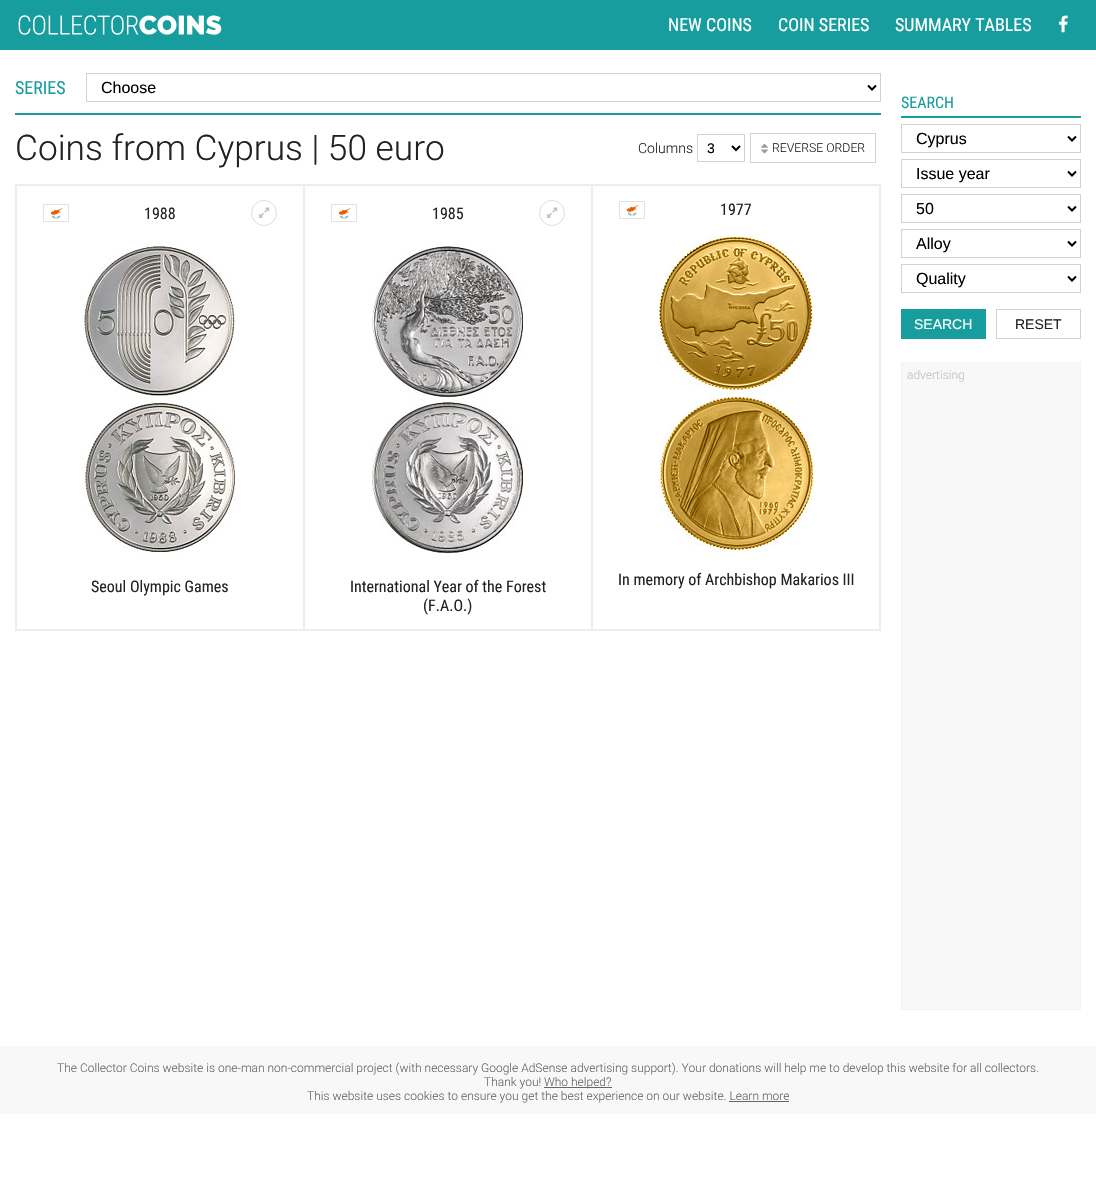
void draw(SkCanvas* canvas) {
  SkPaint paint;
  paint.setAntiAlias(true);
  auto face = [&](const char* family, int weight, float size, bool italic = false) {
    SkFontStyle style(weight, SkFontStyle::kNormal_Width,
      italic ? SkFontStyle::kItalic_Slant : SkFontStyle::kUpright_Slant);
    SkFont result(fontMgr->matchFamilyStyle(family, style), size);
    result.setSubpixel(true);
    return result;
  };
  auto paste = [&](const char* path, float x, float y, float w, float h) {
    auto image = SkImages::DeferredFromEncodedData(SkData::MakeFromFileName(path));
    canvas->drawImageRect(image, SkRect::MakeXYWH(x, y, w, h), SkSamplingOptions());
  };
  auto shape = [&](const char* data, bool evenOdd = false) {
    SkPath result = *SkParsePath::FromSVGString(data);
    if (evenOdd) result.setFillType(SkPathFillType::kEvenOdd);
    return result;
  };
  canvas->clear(0xffffffff);
  paint.setColor(0xff189d9f);
  canvas->drawRect(SkRect::MakeXYWH(0, 0, 1096, 50), paint);
  paste("img/1.png", 18, 15, 204, 20);
  paste("img/2.png", 1058, 15, 10, 18);
  canvas->drawRect(SkRect::MakeXYWH(15, 113, 866, 2), paint);
  paint.setStroke(true);
  paint.setStrokeWidth(1);
  paint.setColor(0xffd1d1d1);
  canvas->drawRect(SkRect::MakeXYWH(86.5f, 73.5f, 794, 28), paint);
  paint.setStrokeWidth(2);
  paint.setColor(0xff000000);
  canvas->drawPath(shape("M868 85.5L872 89.5L876 85.5"), paint);
  paint.setStrokeWidth(1);
  paint.setColor(0xffd1d1d1);
  canvas->drawRect(SkRect::MakeXYWH(697.5f, 134.5f, 47, 27), paint);
  paint.setStrokeWidth(2);
  paint.setColor(0xff000000);
  canvas->drawPath(shape("M732 146L736 150L740 146"), paint);
  paint.setStrokeWidth(1);
  paint.setColor(0xffd1d1d1);
  canvas->drawRect(SkRect::MakeXYWH(750.5f, 133.5f, 125, 29), paint);
  paste("img/3.png", 761, 143, 7, 11);
  paint.setStroke(false);
  {
    const struct { float x, y, w, h; SkColor color; } items[] = {
      {591, 184, 290, 2, 0xffededed},
      {879, 184, 2, 447, 0xffededed},
      {591, 629, 290, 2, 0xffededed},
      {591, 184, 2, 447, 0xffededed},
      {303, 184, 290, 2, 0xffededed},
      {303, 629, 290, 2, 0xffededed},
      {303, 184, 2, 447, 0xffededed},
      {15, 184, 290, 2, 0xffededed},
      {15, 629, 290, 2, 0xffededed},
      {15, 184, 2, 447, 0xffededed},
    };
    for (auto [x, y, w, h, color] : items) {
      paint.setColor(color);
      canvas->drawRect(SkRect::MakeXYWH(x, y, w, h), paint);
    }
  }
  paste("img/4.png", 50, 207, 13, 12);
  paint.setStroke(true);
  paint.setColor(0xffe3e3e3);
  canvas->drawRect(SkRect::MakeXYWH(43.5f, 204.5f, 25, 17), paint);
  paint.setColor(0xffdedede);
  canvas->drawCircle(264, 213, 12.5f, paint);
  paste("img/5.png", 259, 207, 11, 11);
  paste("img/6.png", 83, 241, 152, 312);
  paste("img/4.png", 338, 207, 13, 12);
  paint.setColor(0xffe3e3e3);
  canvas->drawRect(SkRect::MakeXYWH(331.5f, 204.5f, 25, 17), paint);
  paint.setColor(0xffdedede);
  canvas->drawCircle(552, 213, 12.5f, paint);
  paste("img/5.png", 547, 207, 11, 11);
  paste("img/7.png", 371, 242, 153, 312);
  paste("img/4.png", 626, 204, 13, 12);
  paint.setColor(0xffe3e3e3);
  canvas->drawRect(SkRect::MakeXYWH(619.5f, 201.5f, 25, 17), paint);
  paste("img/8.png", 659, 234, 155, 318);
  paint.setStroke(false);
  paint.setColor(0xff189d9f);
  canvas->drawRect(SkRect::MakeXYWH(901, 116, 180, 2), paint);
  paint.setStroke(true);
  paint.setColor(0xffd1d1d1);
  canvas->drawRect(SkRect::MakeXYWH(901.5f, 124.5f, 179, 28), paint);
  paint.setStrokeWidth(2);
  paint.setColor(0xff000000);
  canvas->drawPath(shape("M1068 136.5L1072 140.5L1076 136.5"), paint);
  paint.setStrokeWidth(1);
  paint.setColor(0xffd1d1d1);
  canvas->drawRect(SkRect::MakeXYWH(901.5f, 159.5f, 179, 28), paint);
  paint.setStrokeWidth(2);
  paint.setColor(0xff000000);
  canvas->drawPath(shape("M1068 171.5L1072 175.5L1076 171.5"), paint);
  paint.setStrokeWidth(1);
  paint.setColor(0xffd1d1d1);
  canvas->drawRect(SkRect::MakeXYWH(901.5f, 194.5f, 179, 28), paint);
  paint.setStrokeWidth(2);
  paint.setColor(0xff000000);
  canvas->drawPath(shape("M1068 206.5L1072 210.5L1076 206.5"), paint);
  paint.setStrokeWidth(1);
  paint.setColor(0xffd1d1d1);
  canvas->drawRect(SkRect::MakeXYWH(901.5f, 229.5f, 179, 28), paint);
  paint.setStrokeWidth(2);
  paint.setColor(0xff000000);
  canvas->drawPath(shape("M1068 241.5L1072 245.5L1076 241.5"), paint);
  paint.setStrokeWidth(1);
  paint.setColor(0xffd1d1d1);
  canvas->drawRect(SkRect::MakeXYWH(901.5f, 264.5f, 179, 28), paint);
  paint.setStrokeWidth(2);
  paint.setColor(0xff000000);
  canvas->drawPath(shape("M1068 276.5L1072 280.5L1076 276.5"), paint);
  paint.setStroke(false);
  paint.setColor(0xff189d9f);
  canvas->drawRect(SkRect::MakeXYWH(901, 309, 85, 30), paint);
  paint.setStroke(true);
  paint.setStrokeWidth(1);
  paint.setColor(0xffd1d1d1);
  canvas->drawRect(SkRect::MakeXYWH(996.5f, 309.5f, 84, 29), paint);
  paint.setStroke(false);
  paint.setColor(0xfff8f8f8);
  canvas->drawRect(SkRect::MakeXYWH(901, 362, 180, 648), paint);
  paint.setStroke(true);
  paint.setColor(0xffededed);
  paint.setPathEffect(SkDashPathEffect::Make({{1, 1}}, 0));
  canvas->drawPath(shape("M901 362.5H1081"), paint);
  paint.setPathEffect(nullptr);
  paint.setPathEffect(SkDashPathEffect::Make({{1, 1}}, 0));
  canvas->drawPath(shape("M1080.5 362V1010"), paint);
  paint.setPathEffect(nullptr);
  paint.setPathEffect(SkDashPathEffect::Make({{1, 1}}, 0));
  canvas->drawPath(shape("M901 1009.5H1081"), paint);
  paint.setPathEffect(nullptr);
  paint.setPathEffect(SkDashPathEffect::Make({{1, 1}}, 0));
  canvas->drawPath(shape("M901.5 362V1010"), paint);
  paint.setPathEffect(nullptr);
  paint.setStroke(false);
  {
    const struct { float x, y, w, h; SkColor color; } items[] = {
      {0, 1046, 1096, 68, 0xfff8f8f8},
      {544, 1087, 68, 1, 0xff666666},
      {729, 1101, 60, 1, 0xff666666},
    };
    for (auto [x, y, w, h, color] : items) {
      paint.setColor(color);
      canvas->drawRect(SkRect::MakeXYWH(x, y, w, h), paint);
    }
  }
  auto f0 = face("Roboto Condensed", 400, 18);
  paint.setColor(0xffffffff);
  {
    const struct { const char* s; float x, y; } items[] = {
      {"NEW COINS", 668, 31},
      {"COIN SERIES", 778, 31},
      {"SUMMARY TABLES", 895, 31},
    };
    for (auto [s, x, y] : items) {
      canvas->drawString(s, x, y, f0, paint);
    }
  }
  paint.setColor(0xff189d9f);
  canvas->drawString("SERIES", 15, 94, f0, paint);
  auto f1 = face("Liberation Sans", 400, 16);
  paint.setColor(0xff000000);
  canvas->drawString("Choose", 101, 93, f1, paint);
  auto f2 = face("Roboto", 300, 35.25f);
  paint.setColor(0xff222222);
  canvas->drawString("Coins from Cyprus | 50 euro", 15, 160, f2, paint);
  auto f3 = face("Roboto", 300, 14);
  canvas->drawString("Columns", 638, 153, f3, paint);
  auto f4 = face("Liberation Sans", 400, 14);
  paint.setColor(0xff000000);
  canvas->drawString("3", 707, 153, f4, paint);
  auto f5 = face("Roboto", 300, 12.25f);
  paint.setColor(0xff222222);
  canvas->drawString("REVERSE ORDER", 772, 152, f5, paint);
  auto f6 = face("Roboto Condensed", 400, 16);
  {
    const struct { const char* s; float x, y; } items[] = {
      {"1988", 144, 219},
      {"Seoul Olympic Games", 91, 592},
      {"1985", 432, 219},
      {"International Year of the Forest", 350, 592},
      {"(F.A.O.)", 423, 611},
      {"1977", 720, 215},
      {"In memory of Archbishop Makarios III", 618, 585},
    };
    for (auto [s, x, y] : items) {
      canvas->drawString(s, x, y, f6, paint);
    }
  }
  paint.setColor(0xff189d9f);
  canvas->drawString("SEARCH", 901, 108, f6, paint);
  paint.setColor(0xff000000);
  {
    const struct { const char* s; float x, y; } items[] = {
      {"Cyprus", 916, 144},
      {"Issue year", 916, 179},
      {"50", 916, 214},
      {"Alloy", 916, 249},
      {"Quality", 916, 284},
    };
    for (auto [s, x, y] : items) {
      canvas->drawString(s, x, y, f1, paint);
    }
  }
  paint.setColor(0xffffffff);
  canvas->drawString("SEARCH", 914, 329, f4, paint);
  paint.setColor(0xff222222);
  canvas->drawString("RESET", 1015, 329, f4, paint);
  auto f7 = face("Roboto", 300, 12);
  paint.setColor(0xffc3c3c3);
  canvas->drawString("advertising", 907, 379, f7, paint);
  paint.setColor(0xff666666);
  {
    const struct { const char* s; float x, y; } items[] = {
      {"The Collector Coins website is one-man non-commercial project (with necessary Google AdSense advertising support). Your donations will help me to develop this website for all collectors.", 57, 1072},
      {"Thank you!", 484, 1086},
      {"Who helped?", 544, 1086},
      {"This website uses cookies to ensure you get the best experience on our website. Learn more", 307, 1100},
    };
    for (auto [s, x, y] : items) {
      canvas->drawString(s, x, y, f7, paint);
    }
  }
}
